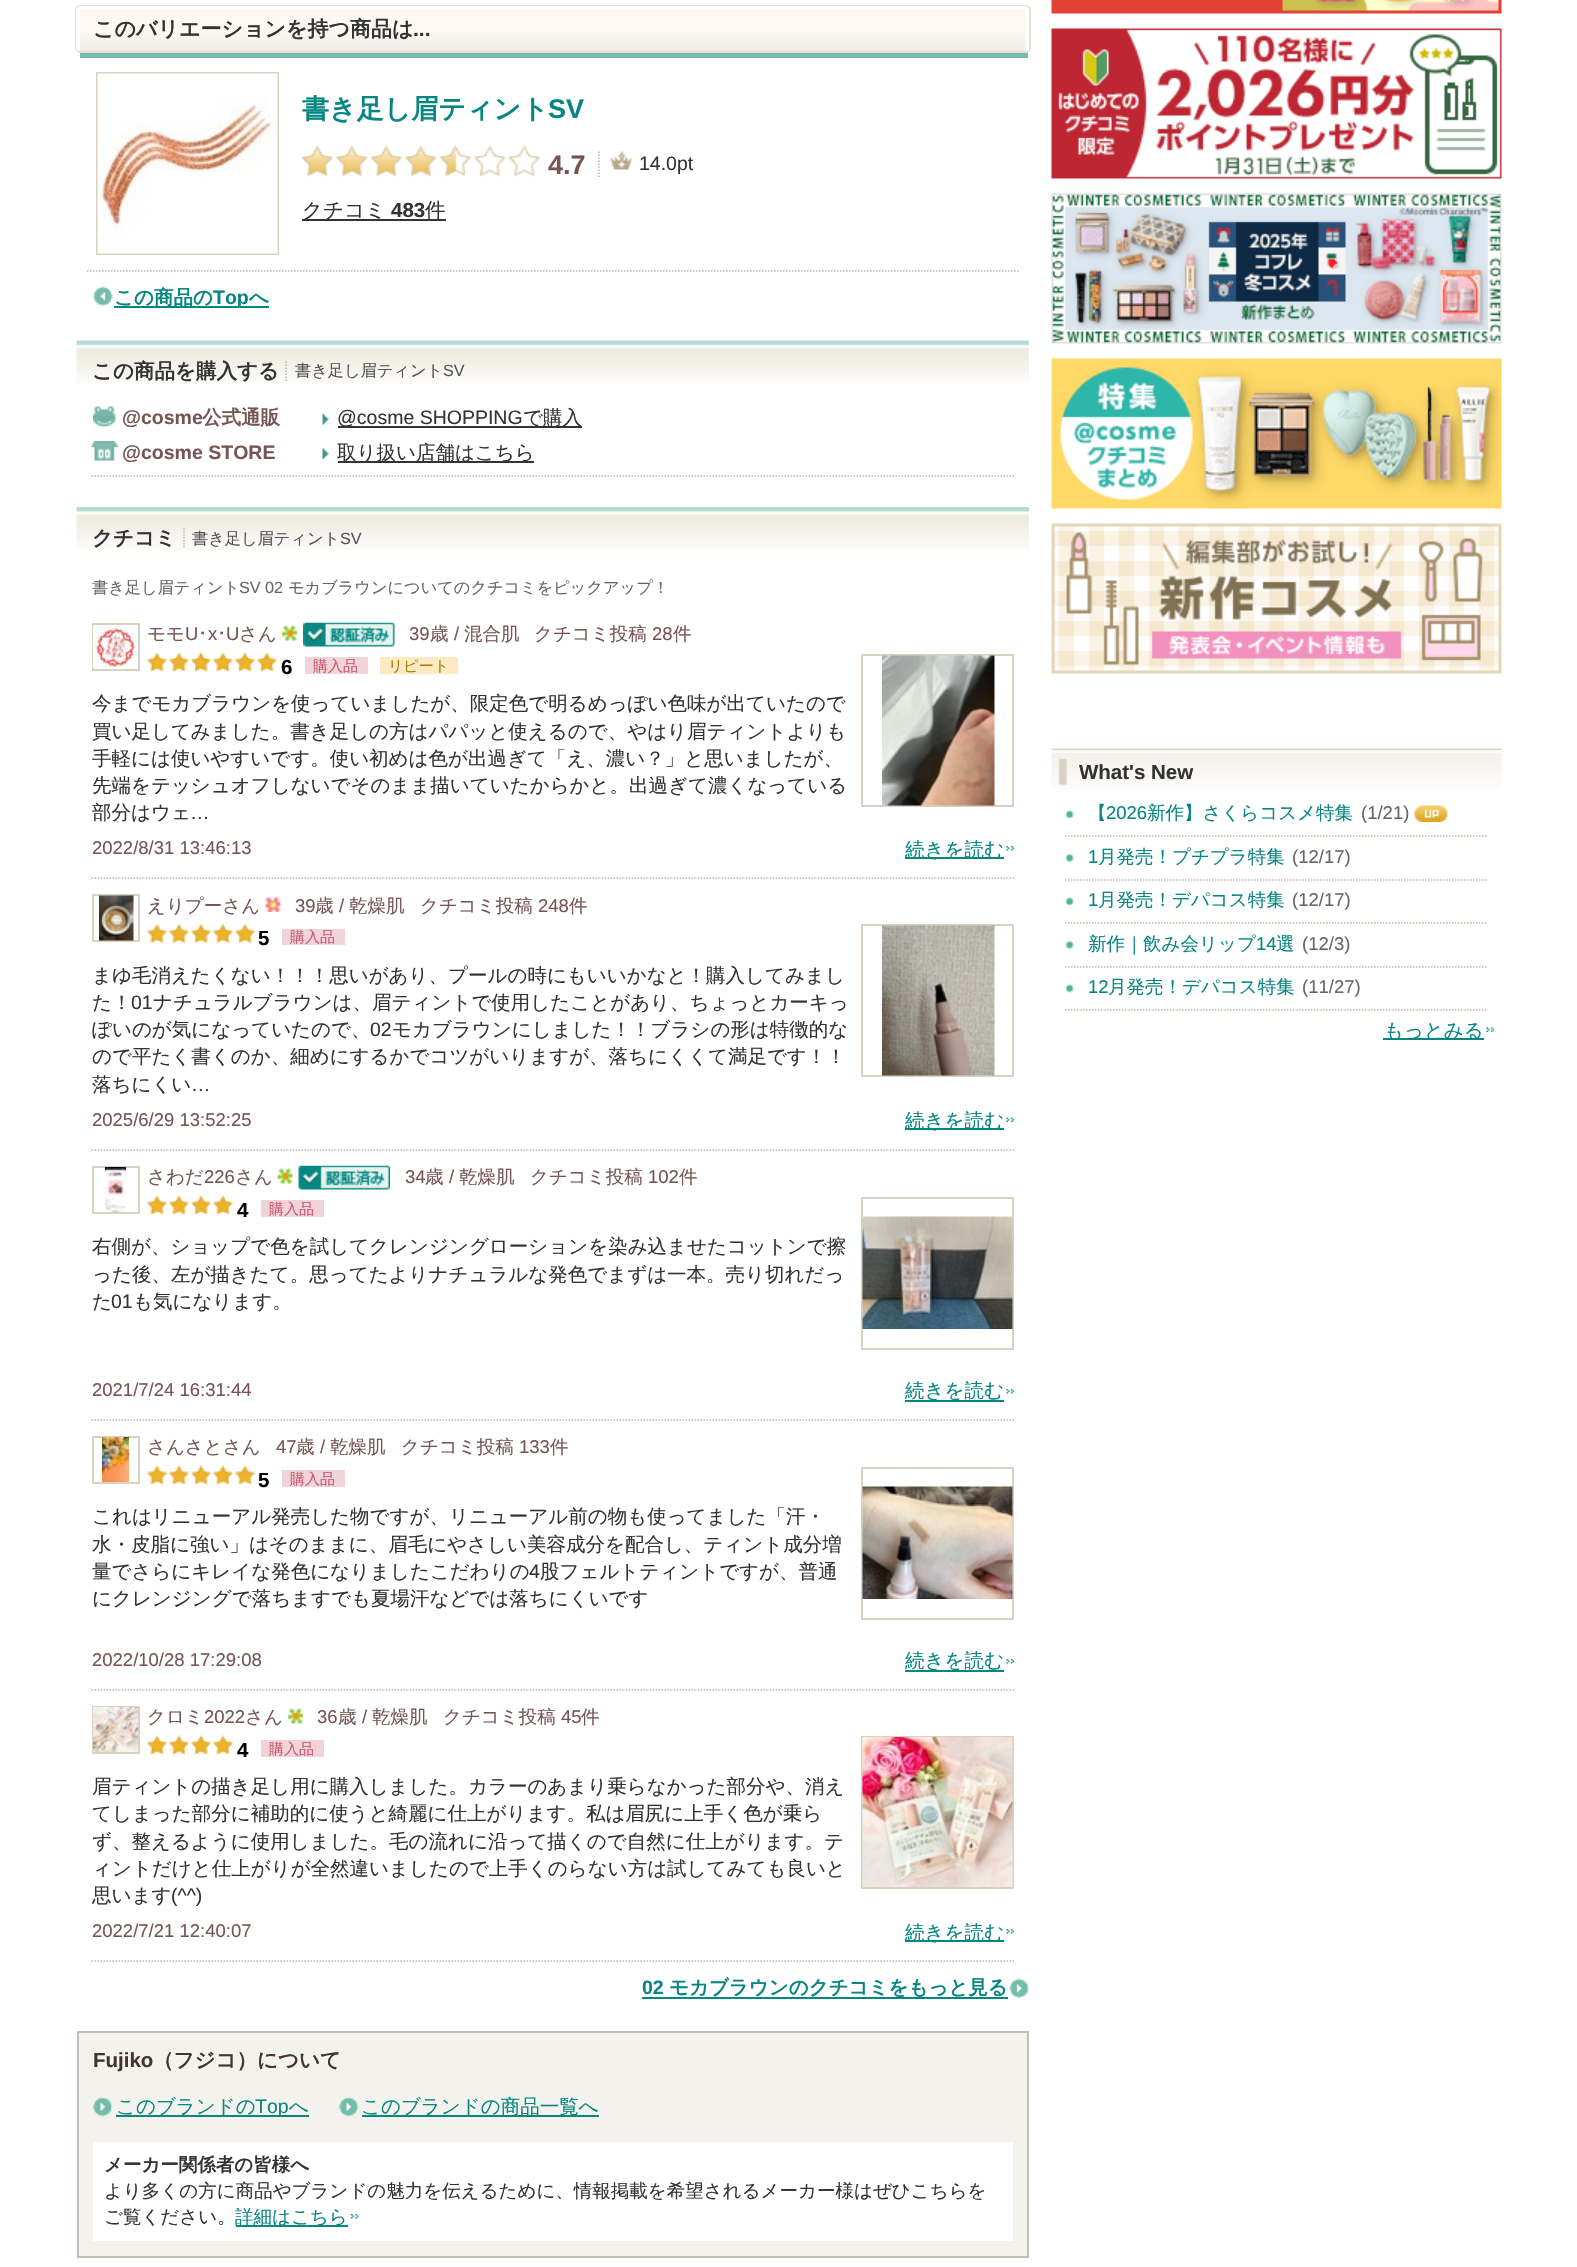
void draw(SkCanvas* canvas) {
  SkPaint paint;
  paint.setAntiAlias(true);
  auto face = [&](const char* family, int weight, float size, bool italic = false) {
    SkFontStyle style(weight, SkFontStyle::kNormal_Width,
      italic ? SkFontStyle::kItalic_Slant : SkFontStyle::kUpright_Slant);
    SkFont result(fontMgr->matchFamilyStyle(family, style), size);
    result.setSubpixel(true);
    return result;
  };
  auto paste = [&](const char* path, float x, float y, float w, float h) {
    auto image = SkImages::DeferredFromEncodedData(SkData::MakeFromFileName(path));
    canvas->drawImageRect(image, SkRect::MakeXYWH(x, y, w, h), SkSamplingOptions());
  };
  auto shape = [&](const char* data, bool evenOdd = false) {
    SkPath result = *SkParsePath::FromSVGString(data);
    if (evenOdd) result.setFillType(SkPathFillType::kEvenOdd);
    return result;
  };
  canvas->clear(0xffffffff);
  paint.setColor(0xff74bbab);
  canvas->drawRect(SkRect::MakeXYWH(80, 53, 948, 5), paint);
  paint.setStroke(true);
  paint.setStrokeWidth(2);
  paint.setColor(0xffe5e0d5);
  canvas->drawPath(shape("M81 6H1025C1028 6 1030 8 1030 11V48C1030 50 1028 52 1026 52H80C78 52 76 50 76 48V11C76 8 78 6 81 6Z"), paint);
  canvas->save();
  canvas->clipPath(shape("M82 6H1024C1027 6 1029 8 1029 11V48C1029 49.5 1027.5 51 1026 51H80C78.5 51 77 49.5 77 48V11C77 8 79 6 82 6Z"), true);
  paint.setStroke(false);
  {
    const SkColor colors[] = {0xfffdf9f2, 0xfffdf9f2, 0xffefece7};
    const float stops[] = {0.01f, 0.49f, 1};
    const SkPoint ends[] = {{553, 9}, {553, 51}};
    paint.setShader(SkGradientShader::MakeLinear(ends, colors, stops, 3, SkTileMode::kClamp));
    paint.setAlpha(255);
  }
  canvas->drawPath(shape("M77 9H1029V48C1029 49.5 1027.5 51 1026 51H80C78.5 51 77 49.5 77 48Z"), paint);
  canvas->restore();
  paint.setShader(nullptr);
  paint.setColor(0xffffffff);
  canvas->drawPath(shape("M81 6H1024C1027 6 1029 8 1029 10V48C1029 50 1028 51 1026 51H80C78 51 76 50 76 48V10C76 8 79 6 81 6ZM81 9H1024C1025 9 1026 10 1026 10V51H80V10C80 10 80 9 81 9Z", true), paint);
  paint.setStroke(true);
  paint.setStrokeWidth(1.5f);
  paint.setColor(0xffbdb8ad);
  paint.setPathEffect(SkDashPathEffect::Make({{1.5f, 1.5f}}, 0));
  canvas->drawPath(shape("M87 271H1018.5"), paint);
  paint.setPathEffect(nullptr);
  paint.setStrokeWidth(2);
  paint.setColor(0xffd9d2c3);
  canvas->drawRect(SkRect::MakeXYWH(97, 73, 181, 181), paint);
  paste("img/1.png", 97, 73, 181, 181);
  paste("img/2.png", 301, 145, 239, 32);
  paste("img/3.png", 610, 151, 22, 19);
  paint.setStrokeWidth(1.5f);
  paint.setColor(0xffbdb8ad);
  paint.setPathEffect(SkDashPathEffect::Make({{1.5f, 1.5f}}, 0));
  canvas->drawPath(shape("M599 151.5V177"), paint);
  paint.setPathEffect(nullptr);
  paint.setStroke(false);
  paint.setColor(0xff333333);
  canvas->drawRect(SkRect::MakeXYWH(302, 219, 144, 2), paint);
  paste("img/4.png", 93, 286, 20, 21);
  paint.setColor(0xff068681);
  canvas->drawRect(SkRect::MakeXYWH(114, 306, 155, 2), paint);
  paste("img/5.png", 76, 340, 953, 44);
  paint.setStroke(true);
  paint.setColor(0xffbdb8ad);
  paint.setPathEffect(SkDashPathEffect::Make({{1.5f, 1.5f}}, 0));
  canvas->drawPath(shape("M286 361.5V381"), paint);
  paint.setPathEffect(nullptr);
  paint.setPathEffect(SkDashPathEffect::Make({{1.5f, 1.5f}}, 0));
  canvas->drawPath(shape("M91.5 476H1014"), paint);
  paint.setPathEffect(nullptr);
  paste("img/6.png", 93, 406, 23, 22);
  paste("img/7.png", 322, 414, 7, 11);
  paint.setStroke(false);
  paint.setColor(0xff333333);
  canvas->drawRect(SkRect::MakeXYWH(338, 426, 244, 2), paint);
  paste("img/8.png", 91, 441, 28, 20);
  paste("img/9.png", 322, 448, 7, 11);
  canvas->drawRect(SkRect::MakeXYWH(338, 461, 196, 2), paint);
  paste("img/10.png", 76, 507, 953, 43);
  paint.setStroke(true);
  paint.setColor(0xffbdb8ad);
  paint.setPathEffect(SkDashPathEffect::Make({{1.5f, 1.5f}}, 0));
  canvas->drawPath(shape("M184 528V549"), paint);
  paint.setPathEffect(nullptr);
  paint.setPathEffect(SkDashPathEffect::Make({{1.5f, 1.5f}}, 0));
  canvas->drawPath(shape("M91.5 878H1014"), paint);
  paint.setPathEffect(nullptr);
  paint.setStrokeWidth(2);
  paint.setColor(0xffd9d2c3);
  canvas->drawRect(SkRect::MakeXYWH(93, 624, 46, 46), paint);
  paste("img/11.png", 93, 625, 45, 43);
  paste("img/12.png", 282, 625, 15, 16);
  paste("img/13.png", 303, 622, 92, 25);
  paste("img/14.png", 147, 652, 130, 21);
  paint.setStroke(false);
  paint.setColor(0xfff1d4d9);
  canvas->drawRect(SkRect::MakeXYWH(305, 657, 63, 17), paint);
  paint.setColor(0xfffcebc1);
  canvas->drawRect(SkRect::MakeXYWH(380, 657, 78, 17), paint);
  paint.setStroke(true);
  paint.setColor(0xffd9d2c3);
  canvas->drawRect(SkRect::MakeXYWH(862, 655, 151, 151), paint);
  paste("img/15.png", 882, 655, 113, 151);
  paint.setStroke(false);
  paint.setColor(0xff068681);
  canvas->drawRect(SkRect::MakeXYWH(905, 857, 99, 2), paint);
  paste("img/16.png", 1006, 846, 8, 5);
  paint.setStroke(true);
  paint.setStrokeWidth(1.5f);
  paint.setColor(0xffbdb8ad);
  paint.setPathEffect(SkDashPathEffect::Make({{1.5f, 1.5f}}, 0));
  canvas->drawPath(shape("M91.5 1150H1014"), paint);
  paint.setPathEffect(nullptr);
  paint.setStrokeWidth(2);
  paint.setColor(0xffd9d2c3);
  canvas->drawRect(SkRect::MakeXYWH(93, 895, 46, 46), paint);
  paste("img/17.png", 99, 895, 35, 46);
  paste("img/18.png", 265, 897, 16, 15);
  paste("img/19.png", 147, 923, 109, 21);
  paint.setStroke(false);
  paint.setColor(0xfff1d4d9);
  canvas->drawRect(SkRect::MakeXYWH(282, 929, 63, 16), paint);
  paint.setStroke(true);
  paint.setColor(0xffd9d2c3);
  canvas->drawRect(SkRect::MakeXYWH(862, 925, 151, 151), paint);
  paste("img/20.png", 882, 925, 113, 151);
  paint.setStroke(false);
  paint.setColor(0xff068681);
  canvas->drawRect(SkRect::MakeXYWH(905, 1128, 99, 2), paint);
  paste("img/21.png", 1006, 1117, 8, 5);
  paint.setStroke(true);
  paint.setStrokeWidth(1.5f);
  paint.setColor(0xffbdb8ad);
  paint.setPathEffect(SkDashPathEffect::Make({{1.5f, 1.5f}}, 0));
  canvas->drawPath(shape("M91.5 1420H1014"), paint);
  paint.setPathEffect(nullptr);
  paint.setStrokeWidth(2);
  paint.setColor(0xffd9d2c3);
  canvas->drawRect(SkRect::MakeXYWH(93, 1167, 46, 46), paint);
  paste("img/22.png", 105, 1167, 21, 45);
  paste("img/23.png", 277, 1168, 16, 16);
  paste("img/24.png", 298, 1165, 92, 25);
  paste("img/25.png", 147, 1195, 87, 21);
  paint.setStroke(false);
  paint.setColor(0xfff1d4d9);
  canvas->drawRect(SkRect::MakeXYWH(261, 1200, 63, 17), paint);
  paint.setStroke(true);
  paint.setColor(0xffd9d2c3);
  canvas->drawRect(SkRect::MakeXYWH(862, 1198, 151, 151), paint);
  paste("img/26.png", 862, 1216, 151, 113);
  paint.setStroke(false);
  paint.setColor(0xff068681);
  canvas->drawRect(SkRect::MakeXYWH(905, 1400, 99, 2), paint);
  paste("img/16.png", 1006, 1389, 8, 5);
  paint.setStroke(true);
  paint.setStrokeWidth(1.5f);
  paint.setColor(0xffbdb8ad);
  paint.setPathEffect(SkDashPathEffect::Make({{1.5f, 1.5f}}, 0));
  canvas->drawPath(shape("M91.5 1690H1014"), paint);
  paint.setPathEffect(nullptr);
  paint.setStrokeWidth(2);
  paint.setColor(0xffd9d2c3);
  canvas->drawRect(SkRect::MakeXYWH(93, 1437, 46, 46), paint);
  paste("img/27.png", 102, 1437, 27, 45);
  paste("img/28.png", 147, 1465, 109, 21);
  paint.setStroke(false);
  paint.setColor(0xfff1d4d9);
  canvas->drawRect(SkRect::MakeXYWH(282, 1470, 63, 17), paint);
  paint.setStroke(true);
  paint.setColor(0xffd9d2c3);
  canvas->drawRect(SkRect::MakeXYWH(862, 1468, 151, 151), paint);
  paste("img/29.png", 862, 1486, 151, 113);
  paint.setStroke(false);
  paint.setColor(0xff068681);
  canvas->drawRect(SkRect::MakeXYWH(905, 1670, 99, 2), paint);
  paste("img/16.png", 1006, 1659, 8, 5);
  paint.setStroke(true);
  paint.setStrokeWidth(1.5f);
  paint.setColor(0xffbdb8ad);
  paint.setPathEffect(SkDashPathEffect::Make({{1.5f, 1.5f}}, 0));
  canvas->drawPath(shape("M91.5 1961H1014"), paint);
  paint.setPathEffect(nullptr);
  paint.setStrokeWidth(2);
  paint.setColor(0xffd9d2c3);
  canvas->drawRect(SkRect::MakeXYWH(93, 1707, 46, 46), paint);
  paste("img/30.png", 93, 1707, 45, 45);
  paste("img/12.png", 288, 1708, 15, 16);
  paste("img/25.png", 147, 1735, 87, 21);
  paint.setStroke(false);
  paint.setColor(0xfff1d4d9);
  canvas->drawRect(SkRect::MakeXYWH(261, 1740, 63, 17), paint);
  paint.setStroke(true);
  paint.setColor(0xffd9d2c3);
  canvas->drawRect(SkRect::MakeXYWH(862, 1737, 151, 151), paint);
  paste("img/31.png", 862, 1737, 151, 150);
  paint.setStroke(false);
  paint.setColor(0xff068681);
  canvas->drawRect(SkRect::MakeXYWH(905, 1940, 99, 2), paint);
  paste("img/16.png", 1006, 1929, 8, 5);
  paste("img/32.png", 1009, 1978, 20, 20);
  canvas->drawRect(SkRect::MakeXYWH(642, 1997, 366, 2), paint);
  paint.setColor(0xfff4f2ec);
  canvas->drawRect(SkRect::MakeXYWH(78, 2032, 950, 225), paint);
  paint.setStroke(true);
  paint.setColor(0xffc2beb3);
  canvas->drawRect(SkRect::MakeXYWH(78, 2032, 950, 225), paint);
  paste("img/33.png", 93, 2096, 20, 21);
  paint.setStroke(false);
  paint.setColor(0xff068681);
  canvas->drawRect(SkRect::MakeXYWH(116, 2115, 193, 2), paint);
  paste("img/34.png", 339, 2096, 20, 21);
  {
    const struct { float x, y, w, h; SkColor color; } items[] = {
      {362, 2115, 237, 2, 0xff068681},
      {93, 2142, 920, 99, 0xffffffff},
      {236, 2225, 112, 2, 0xff068681},
    };
    for (auto [x, y, w, h, color] : items) {
      paint.setColor(color);
      canvas->drawRect(SkRect::MakeXYWH(x, y, w, h), paint);
    }
  }
  paste("img/35.png", 351, 2214, 8, 5);
  paste("img/36.png", 1051, 0, 451, 14);
  paste("img/37.png", 1051, 28, 451, 151);
  paste("img/38.png", 1051, 193, 451, 151);
  paste("img/39.png", 1051, 358, 451, 151);
  paste("img/40.png", 1051, 523, 451, 151);
  paste("img/41.png", 1051, 748, 451, 41);
  paste("img/42.png", 1065, 810, 9, 9);
  paint.setStroke(true);
  paint.setStrokeWidth(1.5f);
  paint.setColor(0xffbfb7ac);
  paint.setPathEffect(SkDashPathEffect::Make({{1.5f, 1.5f}}, 0));
  canvas->drawPath(shape("M1065 836H1488"), paint);
  paint.setPathEffect(nullptr);
  paste("img/43.png", 1414, 805, 34, 17);
  paste("img/44.png", 1065, 853, 9, 10);
  paint.setPathEffect(SkDashPathEffect::Make({{1.5f, 1.5f}}, 0));
  canvas->drawPath(shape("M1065 880H1488"), paint);
  paint.setPathEffect(nullptr);
  paste("img/42.png", 1065, 897, 9, 9);
  paint.setPathEffect(SkDashPathEffect::Make({{1.5f, 1.5f}}, 0));
  canvas->drawPath(shape("M1065 923H1488"), paint);
  paint.setPathEffect(nullptr);
  paste("img/44.png", 1065, 940, 9, 10);
  paint.setPathEffect(SkDashPathEffect::Make({{1.5f, 1.5f}}, 0));
  canvas->drawPath(shape("M1065 967H1488"), paint);
  paint.setPathEffect(nullptr);
  paste("img/42.png", 1065, 984, 9, 9);
  paint.setPathEffect(SkDashPathEffect::Make({{1.5f, 1.5f}}, 0));
  canvas->drawPath(shape("M1065 1010H1488"), paint);
  paint.setPathEffect(nullptr);
  paint.setStroke(false);
  paint.setColor(0xff068681);
  canvas->drawRect(SkRect::MakeXYWH(1383, 1038, 101, 2), paint);
  paste("img/45.png", 1486, 1027, 8, 5);
  auto f0 = face("WenQuanYi Zen Hei", 700, 21);
  paint.setColor(0xff333333);
  canvas->drawString("このバリエーションを持つ商品は", 93, 36, f0, paint);
  auto f1 = face("Liberation Sans", 700, 21);
  canvas->drawString("...", 413, 36, f1, paint);
  auto f2 = face("WenQuanYi Zen Hei", 700, 27);
  paint.setColor(0xff068681);
  canvas->drawString("書き足し眉ティント", 302, 118, f2, paint);
  auto f3 = face("Liberation Sans", 700, 27);
  canvas->drawString("SV", 548, 118, f3, paint);
  paint.setColor(0xff775555);
  canvas->drawString("4.7", 548, 174, f3, paint);
  auto f4 = face("Liberation Sans", 400, 19.5f);
  paint.setColor(0xff333333);
  canvas->drawString("14.0pt", 639, 170, f4, paint);
  auto f5 = face("WenQuanYi Zen Hei", 500, 20.5f);
  canvas->drawString("クチコミ", 302, 217, f5, paint);
  auto f6 = face("Liberation Sans", 700, 20.5f);
  canvas->drawString("483", 391, 217, f6, paint);
  canvas->drawString("件", 425, 217, f5, paint);
  auto f7 = face("WenQuanYi Zen Hei", 700, 19.5f);
  paint.setColor(0xff068681);
  canvas->drawString("この商品の", 114, 304, f7, paint);
  auto f8 = face("Liberation Sans", 700, 19.5f);
  canvas->drawString("Top", 213, 304, f8, paint);
  canvas->drawString("へ", 249, 304, f7, paint);
  auto f9 = face("WenQuanYi Zen Hei", 700, 20.5f);
  paint.setColor(0xff333333);
  canvas->drawString("この商品を購入する", 92, 378, f9, paint);
  auto f10 = face("WenQuanYi Zen Hei", 500, 16.2f);
  paint.setColor(0xff555555);
  canvas->drawString("書き足し眉ティント", 295, 376, f10, paint);
  auto f11 = face("Liberation Sans", 400, 16.2f);
  canvas->drawString("SV", 443, 376, f11, paint);
  paint.setColor(0xff775555);
  canvas->drawString("@cosme", 122, 424, f8, paint);
  canvas->drawString("公式通販", 202, 424, f7, paint);
  paint.setColor(0xff333333);
  canvas->drawString("@cosme SHOPPING", 337, 424, f4, paint);
  auto f12 = face("WenQuanYi Zen Hei", 500, 19.5f);
  canvas->drawString("で購入", 523, 424, f12, paint);
  paint.setColor(0xff775555);
  canvas->drawString("@cosme STORE", 122, 459, f8, paint);
  paint.setColor(0xff333333);
  canvas->drawString("取り扱い店舗はこちら", 337, 459, f12, paint);
  canvas->drawString("クチコミ", 92, 545, f9, paint);
  paint.setColor(0xff555555);
  canvas->drawString("書き足し眉ティント", 192, 544, f10, paint);
  canvas->drawString("SV", 340, 544, f11, paint);
  paint.setColor(0xff666666);
  canvas->drawString("書き足し眉ティント", 92, 593, f10, paint);
  canvas->drawString("SV 02", 239, 593, f11, paint);
  canvas->drawString("モカブラウンについてのクチコミをピックアップ！", 288, 593, f10, paint);
  auto f13 = face("WenQuanYi Zen Hei", 500, 18.5f);
  paint.setColor(0xff775555);
  canvas->drawString("モモ", 147, 640, f13, paint);
  auto f14 = face("Liberation Sans", 400, 18.5f);
  canvas->drawString("U", 185, 640, f14, paint);
  auto f15 = face("IPAPGothic", 400, 18.5f);
  canvas->drawString("･", 198, 640, f15, paint);
  canvas->drawString("x", 208, 640, f14, paint);
  canvas->drawString("･", 217, 640, f15, paint);
  canvas->drawString("U", 226, 640, f14, paint);
  canvas->drawString("さん", 239, 640, f13, paint);
  canvas->drawString("39", 409, 640, f14, paint);
  canvas->drawString("歳", 430, 640, f13, paint);
  canvas->drawString("/", 454, 640, f14, paint);
  canvas->drawString("混合肌", 464, 640, f13, paint);
  canvas->drawString("クチコミ投稿", 534, 640, f13, paint);
  canvas->drawString("28", 652, 640, f14, paint);
  canvas->drawString("件", 673, 640, f13, paint);
  paint.setColor(0xff000000);
  canvas->drawString("6", 281, 674, f6, paint);
  auto f16 = face("WenQuanYi Zen Hei", 500, 15);
  paint.setColor(0xffca576c);
  canvas->drawString("購入品", 313, 671, f16, paint);
  paint.setColor(0xffa97b0d);
  canvas->drawString("リピート", 388, 671, f16, paint);
  paint.setColor(0xff333333);
  {
    const struct { const char* s; float x, y; } items[] = {
      {"今までモカブラウンを使っていましたが、限定色で明るめっぽい色味が出ていたので", 92, 710},
      {"買い足してみました。書き足しの方はパパッと使えるので、やはり眉ティントよりも", 92, 738},
      {"手軽には使いやすいです。使い初めは色が出過ぎて「え、濃い？」と思いましたが、", 92, 765},
      {"先端をテッシュオフしないでそのまま描いていたからかと。出過ぎて濃くなっている", 92, 792},
      {"部分はウェ", 92, 819},
    };
    for (auto [s, x, y] : items) {
      canvas->drawString(s, x, y, f12, paint);
    }
  }
  canvas->drawString("…", 190, 819, f4, paint);
  paint.setColor(0xff775555);
  canvas->drawString("2022/8/31 13:46:13", 92, 854, f14, paint);
  paint.setColor(0xff068681);
  canvas->drawString("続きを読む", 905, 856, f12, paint);
  paint.setColor(0xff775555);
  canvas->drawString("えりプーさん", 147, 912, f13, paint);
  canvas->drawString("39", 295, 912, f14, paint);
  canvas->drawString("歳", 315, 912, f13, paint);
  canvas->drawString("/", 339, 912, f14, paint);
  canvas->drawString("乾燥肌", 349, 912, f13, paint);
  canvas->drawString("クチコミ投稿", 420, 912, f13, paint);
  canvas->drawString("248", 538, 912, f14, paint);
  canvas->drawString("件", 569, 912, f13, paint);
  paint.setColor(0xff000000);
  canvas->drawString("5", 258, 945, f6, paint);
  paint.setColor(0xffca576c);
  canvas->drawString("購入品", 290, 942, f16, paint);
  paint.setColor(0xff333333);
  canvas->drawString("まゆ毛消えたくない！！！思いがあり、プールの時にもいいかなと！購入してみまし", 92, 982, f12, paint);
  canvas->drawString("た！", 92, 1009, f12, paint);
  canvas->drawString("01", 131, 1009, f4, paint);
  canvas->drawString("ナチュラルブラウンは、眉ティントで使用したことがあり、ちょっとカーキっ", 153, 1009, f12, paint);
  canvas->drawString("ぽいのが気になっていたので、", 92, 1036, f12, paint);
  canvas->drawString("02", 370, 1036, f4, paint);
  {
    const struct { const char* s; float x, y; } items[] = {
      {"モカブラウンにしました！！ブラシの形は特徴的な", 392, 1036},
      {"ので平たく書くのか、細めにするかでコツがいりますが、落ちにくくて満足です！！", 92, 1063},
      {"落ちにくい", 92, 1091},
    };
    for (auto [s, x, y] : items) {
      canvas->drawString(s, x, y, f12, paint);
    }
  }
  canvas->drawString("…", 191, 1091, f4, paint);
  paint.setColor(0xff775555);
  canvas->drawString("2025/6/29 13:52:25", 92, 1126, f14, paint);
  paint.setColor(0xff068681);
  canvas->drawString("続きを読む", 905, 1127, f12, paint);
  paint.setColor(0xff775555);
  canvas->drawString("さわだ", 147, 1183, f13, paint);
  canvas->drawString("226", 204, 1183, f14, paint);
  canvas->drawString("さん", 235, 1183, f13, paint);
  canvas->drawString("34", 405, 1183, f14, paint);
  canvas->drawString("歳", 425, 1183, f13, paint);
  canvas->drawString("/", 449, 1183, f14, paint);
  canvas->drawString("乾燥肌", 459, 1183, f13, paint);
  canvas->drawString("クチコミ投稿", 530, 1183, f13, paint);
  canvas->drawString("102", 648, 1183, f14, paint);
  canvas->drawString("件", 679, 1183, f13, paint);
  paint.setColor(0xff000000);
  canvas->drawString("4", 237, 1217, f6, paint);
  paint.setColor(0xffca576c);
  canvas->drawString("購入品", 269, 1214, f16, paint);
  paint.setColor(0xff333333);
  {
    const struct { const char* s; float x, y; } items[] = {
      {"右側が、ショップで色を試してクレンジングローションを染み込ませたコットンで擦", 92, 1253},
      {"った後、左が描きたて。思ってたよりナチュラルな発色でまずは一本。売り切れだっ", 92, 1281},
      {"た", 92, 1308},
    };
    for (auto [s, x, y] : items) {
      canvas->drawString(s, x, y, f12, paint);
    }
  }
  canvas->drawString("01", 111, 1308, f4, paint);
  canvas->drawString("も気になります。", 133, 1308, f12, paint);
  paint.setColor(0xff775555);
  canvas->drawString("2021/7/24 16:31:44", 92, 1396, f14, paint);
  paint.setColor(0xff068681);
  canvas->drawString("続きを読む", 905, 1397, f12, paint);
  paint.setColor(0xff775555);
  canvas->drawString("さんさとさん", 147, 1453, f13, paint);
  canvas->drawString("47", 276, 1453, f14, paint);
  canvas->drawString("歳", 296, 1453, f13, paint);
  canvas->drawString("/", 320, 1453, f14, paint);
  canvas->drawString("乾燥肌", 330, 1453, f13, paint);
  canvas->drawString("クチコミ投稿", 401, 1453, f13, paint);
  canvas->drawString("133", 519, 1453, f14, paint);
  canvas->drawString("件", 550, 1453, f13, paint);
  paint.setColor(0xff000000);
  canvas->drawString("5", 258, 1487, f6, paint);
  paint.setColor(0xffca576c);
  canvas->drawString("購入品", 290, 1484, f16, paint);
  paint.setColor(0xff333333);
  {
    const struct { const char* s; float x, y; } items[] = {
      {"これはリニューアル発売した物ですが、リニューアル前の物も使ってました「汗・", 92, 1523},
      {"水・皮脂に強い」はそのままに、眉毛にやさしい美容成分を配合し、ティント成分増", 92, 1551},
      {"量でさらにキレイな発色になりましたこだわりの", 92, 1578},
    };
    for (auto [s, x, y] : items) {
      canvas->drawString(s, x, y, f12, paint);
    }
  }
  canvas->drawString("4", 529, 1578, f4, paint);
  canvas->drawString("股フェルトティントですが、普通", 540, 1578, f12, paint);
  canvas->drawString("にクレンジングで落ちますでも夏場汗などでは落ちにくいです", 92, 1605, f12, paint);
  paint.setColor(0xff775555);
  canvas->drawString("2022/10/28 17:29:08", 92, 1666, f14, paint);
  paint.setColor(0xff068681);
  canvas->drawString("続きを読む", 905, 1667, f12, paint);
  paint.setColor(0xff775555);
  canvas->drawString("クロミ", 147, 1723, f13, paint);
  canvas->drawString("2022", 204, 1723, f14, paint);
  canvas->drawString("さん", 245, 1723, f13, paint);
  canvas->drawString("36", 317, 1723, f14, paint);
  canvas->drawString("歳", 338, 1723, f13, paint);
  canvas->drawString("/", 362, 1723, f14, paint);
  canvas->drawString("乾燥肌", 372, 1723, f13, paint);
  canvas->drawString("クチコミ投稿", 443, 1723, f13, paint);
  canvas->drawString("45", 561, 1723, f14, paint);
  canvas->drawString("件", 581, 1723, f13, paint);
  paint.setColor(0xff000000);
  canvas->drawString("4", 237, 1757, f6, paint);
  paint.setColor(0xffca576c);
  canvas->drawString("購入品", 269, 1754, f16, paint);
  paint.setColor(0xff333333);
  {
    const struct { const char* s; float x, y; } items[] = {
      {"眉ティントの描き足し用に購入しました。カラーのあまり乗らなかった部分や、消え", 92, 1793},
      {"てしまった部分に補助的に使うと綺麗に仕上がります。私は眉尻に上手く色が乗ら", 92, 1820},
      {"ず、整えるように使用しました。毛の流れに沿って描くので自然に仕上がります。テ", 92, 1848},
      {"ィントだけと仕上がりが全然違いましたので上手くのらない方は試してみても良いと", 92, 1875},
      {"思います", 92, 1902},
    };
    for (auto [s, x, y] : items) {
      canvas->drawString(s, x, y, f12, paint);
    }
  }
  canvas->drawString("(^^)", 171, 1902, f4, paint);
  paint.setColor(0xff775555);
  canvas->drawString("2022/7/21 12:40:07", 92, 1937, f14, paint);
  paint.setColor(0xff068681);
  canvas->drawString("続きを読む", 905, 1939, f12, paint);
  canvas->drawString("02", 642, 1994, f8, paint);
  canvas->drawString("モカブラウンのクチコミをもっと見る", 669, 1994, f7, paint);
  paint.setColor(0xff443333);
  canvas->drawString("Fujiko", 93, 2067, f6, paint);
  canvas->drawString("（フジコ）について", 153, 2067, f9, paint);
  paint.setColor(0xff068681);
  canvas->drawString("このブランドの", 116, 2113, f12, paint);
  canvas->drawString("Top", 255, 2113, f4, paint);
  canvas->drawString("へ", 289, 2113, f12, paint);
  canvas->drawString("このブランドの商品一覧へ", 361, 2113, f12, paint);
  auto f17 = face("WenQuanYi Zen Hei", 700, 18.5f);
  paint.setColor(0xff333333);
  canvas->drawString("メーカー関係者の皆様へ", 104, 2171, f17, paint);
  canvas->drawString("より多くの方に商品やブランドの魅力を伝えるために、情報掲載を希望されるメーカー様はぜひこちらを", 104, 2197, f13, paint);
  canvas->drawString("ご覧ください。", 104, 2223, f13, paint);
  paint.setColor(0xff068681);
  canvas->drawString("詳細はこちら", 235, 2223, f13, paint);
  paint.setColor(0xff333333);
  canvas->drawString("What's New", 1079, 779, f6, paint);
  paint.setColor(0xff068681);
  canvas->drawString("【", 1088, 819, f13, paint);
  canvas->drawString("2026", 1106, 819, f14, paint);
  canvas->drawString("新作】さくらコスメ特集", 1147, 819, f13, paint);
  paint.setColor(0xff666666);
  canvas->drawString("(1/21)", 1361, 819, f14, paint);
  paint.setColor(0xff068681);
  canvas->drawString("1", 1088, 863, f14, paint);
  canvas->drawString("月発売！プチプラ特集", 1098, 863, f13, paint);
  paint.setColor(0xff666666);
  canvas->drawString("(12/17)", 1292, 863, f14, paint);
  paint.setColor(0xff068681);
  canvas->drawString("1", 1088, 906, f14, paint);
  canvas->drawString("月発売！デパコス特集", 1098, 906, f13, paint);
  paint.setColor(0xff666666);
  canvas->drawString("(12/17)", 1292, 906, f14, paint);
  paint.setColor(0xff068681);
  canvas->drawString("新作｜飲み会リップ", 1088, 950, f13, paint);
  canvas->drawString("14", 1256, 950, f14, paint);
  canvas->drawString("選", 1276, 950, f13, paint);
  paint.setColor(0xff666666);
  canvas->drawString("(12/3)", 1302, 950, f14, paint);
  paint.setColor(0xff068681);
  canvas->drawString("12", 1088, 993, f14, paint);
  canvas->drawString("月発売！デパコス特集", 1108, 993, f13, paint);
  paint.setColor(0xff666666);
  canvas->drawString("(11/27)", 1302, 993, f14, paint);
  paint.setColor(0xff068681);
  canvas->drawString("もっとみる", 1384, 1037, f12, paint);
}
